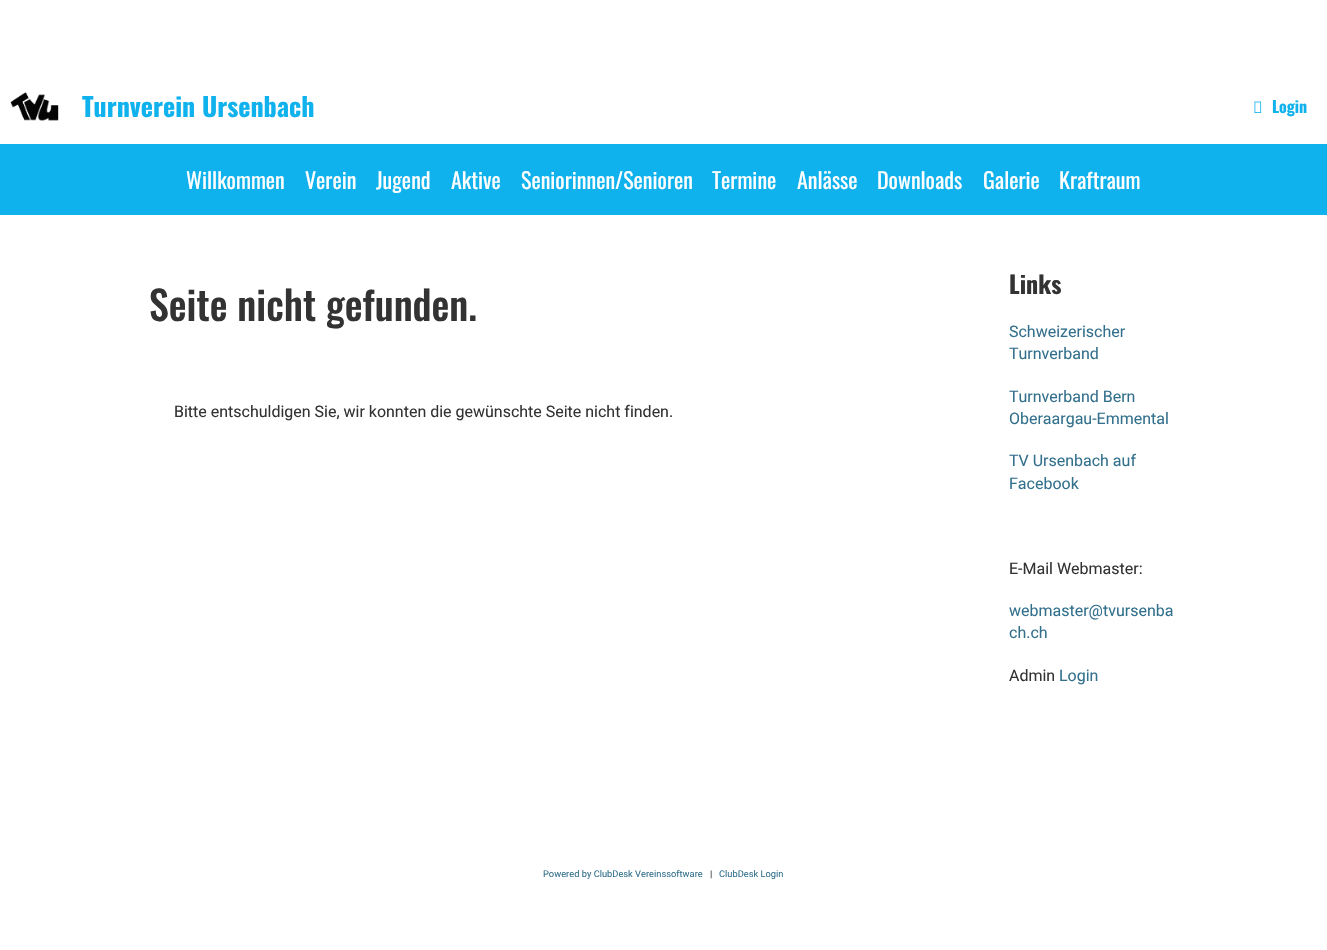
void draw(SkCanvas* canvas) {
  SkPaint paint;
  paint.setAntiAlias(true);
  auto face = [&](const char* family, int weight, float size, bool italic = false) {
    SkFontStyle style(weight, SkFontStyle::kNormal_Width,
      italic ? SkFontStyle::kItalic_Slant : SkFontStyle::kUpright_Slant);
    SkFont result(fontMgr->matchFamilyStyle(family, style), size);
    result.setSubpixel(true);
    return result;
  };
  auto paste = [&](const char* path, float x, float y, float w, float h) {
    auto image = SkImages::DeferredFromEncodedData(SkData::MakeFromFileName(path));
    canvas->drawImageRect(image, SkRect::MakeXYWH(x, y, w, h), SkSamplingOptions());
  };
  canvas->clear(0xffffffff);
  paste("img/1.png", 10, 92, 49, 29);
  paste("img/2.png", 1254, 101, 8, 12);
  paint.setColor(0xff10b2ed);
  canvas->drawRect(SkRect::MakeXYWH(0, 144, 1327, 71), paint);
  auto f0 = face("Oswald", 700, 26);
  canvas->drawString("Turnverein Ursenbach", 82, 117, f0, paint);
  auto f1 = face("Oswald", 700, 16);
  canvas->drawString("Login", 1272, 113, f1, paint);
  auto f2 = face("Oswald", 400, 22);
  paint.setColor(0xffffffff);
  {
    const struct { const char* s; float x, y; } items[] = {
      {"Willkommen", 186, 189},
      {"Verein", 305, 189},
      {"Jugend", 376, 189},
      {"Aktive", 451, 189},
      {"Seniorinnen/Senioren", 521, 189},
      {"Termine", 712, 189},
      {"Anlässe", 797, 189},
      {"Downloads", 877, 189},
      {"Galerie", 983, 189},
      {"Kraftraum", 1059, 189},
    };
    for (auto [s, x, y] : items) {
      canvas->drawString(s, x, y, f2, paint);
    }
  }
  auto f3 = face("Oswald", 500, 40);
  paint.setColor(0xff333333);
  canvas->drawString("Seite nicht gefunden.", 149, 321, f3, paint);
  auto f4 = face("Roboto", 400, 16);
  canvas->drawString("Bitte entschuldigen Sie, wir konnten die gewünschte Seite nicht finden.", 174, 417, f4, paint);
  auto f5 = face("Oswald", 700, 24);
  canvas->drawString("Links", 1009, 294, f5, paint);
  paint.setColor(0xff33708c);
  {
    const struct { const char* s; float x, y; } items[] = {
      {"Schweizerischer", 1009, 337},
      {"Turnverband", 1009, 359},
      {"Turnverband Bern", 1009, 402},
      {"Oberaargau-Emmental", 1009, 424},
      {"TV Ursenbach auf", 1009, 466},
      {"Facebook", 1009, 489},
    };
    for (auto [s, x, y] : items) {
      canvas->drawString(s, x, y, f4, paint);
    }
  }
  paint.setColor(0xff333333);
  canvas->drawString("E-Mail Webmaster:", 1009, 574, f4, paint);
  paint.setColor(0xff33708c);
  canvas->drawString("webmaster@tvursenba", 1009, 616, f4, paint);
  canvas->drawString("ch.ch", 1009, 638, f4, paint);
  paint.setColor(0xff333333);
  canvas->drawString("Admin", 1009, 681, f4, paint);
  paint.setColor(0xff33708c);
  canvas->drawString("Login", 1059, 681, f4, paint);
  auto f6 = face("Roboto", 400, 9.3f);
  canvas->drawString("Powered by ClubDesk Vereinssoftware", 543, 877, f6, paint);
  paint.setColor(0xff333333);
  canvas->drawString("|", 710, 877, f6, paint);
  paint.setColor(0xff33708c);
  canvas->drawString("ClubDesk Login", 719, 877, f6, paint);
}
